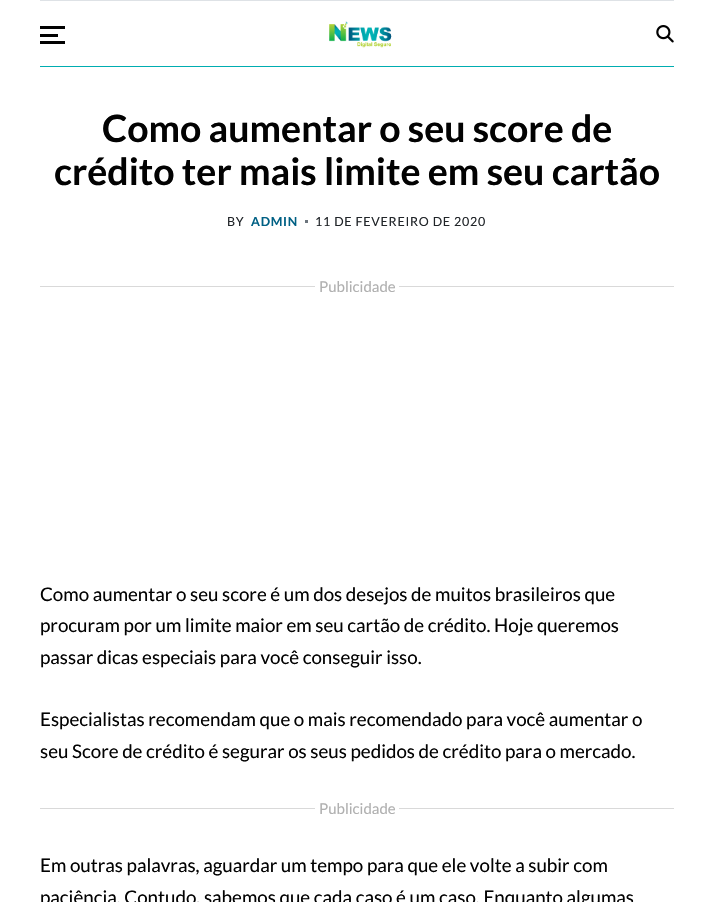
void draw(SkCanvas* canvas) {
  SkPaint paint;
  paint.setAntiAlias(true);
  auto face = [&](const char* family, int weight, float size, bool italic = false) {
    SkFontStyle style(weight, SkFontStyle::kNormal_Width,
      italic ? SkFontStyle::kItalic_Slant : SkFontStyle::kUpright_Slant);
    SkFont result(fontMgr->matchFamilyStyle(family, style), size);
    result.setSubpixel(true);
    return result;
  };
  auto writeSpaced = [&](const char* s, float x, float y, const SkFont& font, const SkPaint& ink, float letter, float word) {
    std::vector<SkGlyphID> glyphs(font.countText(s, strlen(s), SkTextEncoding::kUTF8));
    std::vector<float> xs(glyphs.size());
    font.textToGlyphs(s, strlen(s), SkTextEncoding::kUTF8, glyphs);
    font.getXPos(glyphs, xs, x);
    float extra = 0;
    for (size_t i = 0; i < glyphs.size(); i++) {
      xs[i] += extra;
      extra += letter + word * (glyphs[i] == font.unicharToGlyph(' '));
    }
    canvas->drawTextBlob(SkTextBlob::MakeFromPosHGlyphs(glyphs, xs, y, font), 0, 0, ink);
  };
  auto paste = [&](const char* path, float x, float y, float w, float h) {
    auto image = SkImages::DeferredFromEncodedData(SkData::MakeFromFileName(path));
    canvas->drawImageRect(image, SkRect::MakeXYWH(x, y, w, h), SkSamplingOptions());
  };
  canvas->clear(0xffffffff);
  {
    const struct { float x, y, w, h; SkColor color; } items[] = {
      {40, 0, 634, 1, 0xffdee2e6},
      {40, 66, 634, 1, 0xff00adb1},
      {40, 26, 25, 3, 0xff010101},
      {40, 34, 18, 3, 0xff010101},
      {40, 41, 25, 3, 0xff010101},
    };
    for (auto [x, y, w, h, color] : items) {
      paint.setColor(color);
      canvas->drawRect(SkRect::MakeXYWH(x, y, w, h), paint);
    }
  }
  paste("img/1.png", 329, 21, 63, 27);
  paste("img/2.png", 656, 25, 18, 18);
  {
    const struct { float x, y, w, h; SkColor color; } items[] = {
      {305, 220, 3, 3, 0xff6c757d},
      {40, 286, 275, 1, 0xffd9d9d9},
      {399, 286, 275, 1, 0xffd9d9d9},
      {40, 808, 275, 1, 0xffd9d9d9},
      {399, 808, 275, 1, 0xffd9d9d9},
    };
    for (auto [x, y, w, h, color] : items) {
      paint.setColor(color);
      canvas->drawRect(SkRect::MakeXYWH(x, y, w, h), paint);
    }
  }
  auto f0 = face("Lato", 700, 37.5f);
  paint.setColor(0xff020202);
  canvas->drawString("Como aumentar o seu score de", 102, 142, f0, paint);
  canvas->drawString("crédito ter mais limite em seu cartão", 54, 185, f0, paint);
  auto f1 = face("Lato", 400, 12.5f);
  paint.setColor(0xff212529);
  writeSpaced("BY", 227, 226, f1, paint, 0.75f, 0);
  auto f2 = face("Lato", 700, 12.5f);
  paint.setColor(0xff006084);
  writeSpaced("ADMIN", 251, 226, f2, paint, 0.75f, 0);
  paint.setColor(0xff212529);
  writeSpaced("11 DE FEVEREIRO DE 2020", 315, 226, f1, paint, 0.75f, 0);
  auto f3 = face("Lato", 400, 15);
  paint.setColor(0xffb0b0b0);
  canvas->drawString("Publicidade", 319, 292, f3, paint);
  auto f4 = face("Lato", 400, 18.75f);
  paint.setColor(0xff020202);
  {
    const struct { const char* s; float x, y; } items[] = {
      {"Como aumentar o seu score é um dos desejos de muitos brasileiros que", 40, 601},
      {"procuram por um limite maior em seu cartão de crédito. Hoje queremos", 40, 632},
      {"passar dicas especiais para você conseguir isso.", 40, 664},
      {"Especialistas recomendam que o mais recomendado para você aumentar o", 40, 726},
      {"seu Score de crédito é segurar os seus pedidos de crédito para o mercado.", 40, 758},
    };
    for (auto [s, x, y] : items) {
      canvas->drawString(s, x, y, f4, paint);
    }
  }
  paint.setColor(0xffb0b0b0);
  canvas->drawString("Publicidade", 319, 814, f3, paint);
  paint.setColor(0xff020202);
  canvas->drawString("Em outras palavras, aguardar um tempo para que ele volte a subir com", 40, 872, f4, paint);
  canvas->drawString("paciência. Contudo, sabemos que cada caso é um caso. Enquanto algumas", 40, 904, f4, paint);
}
